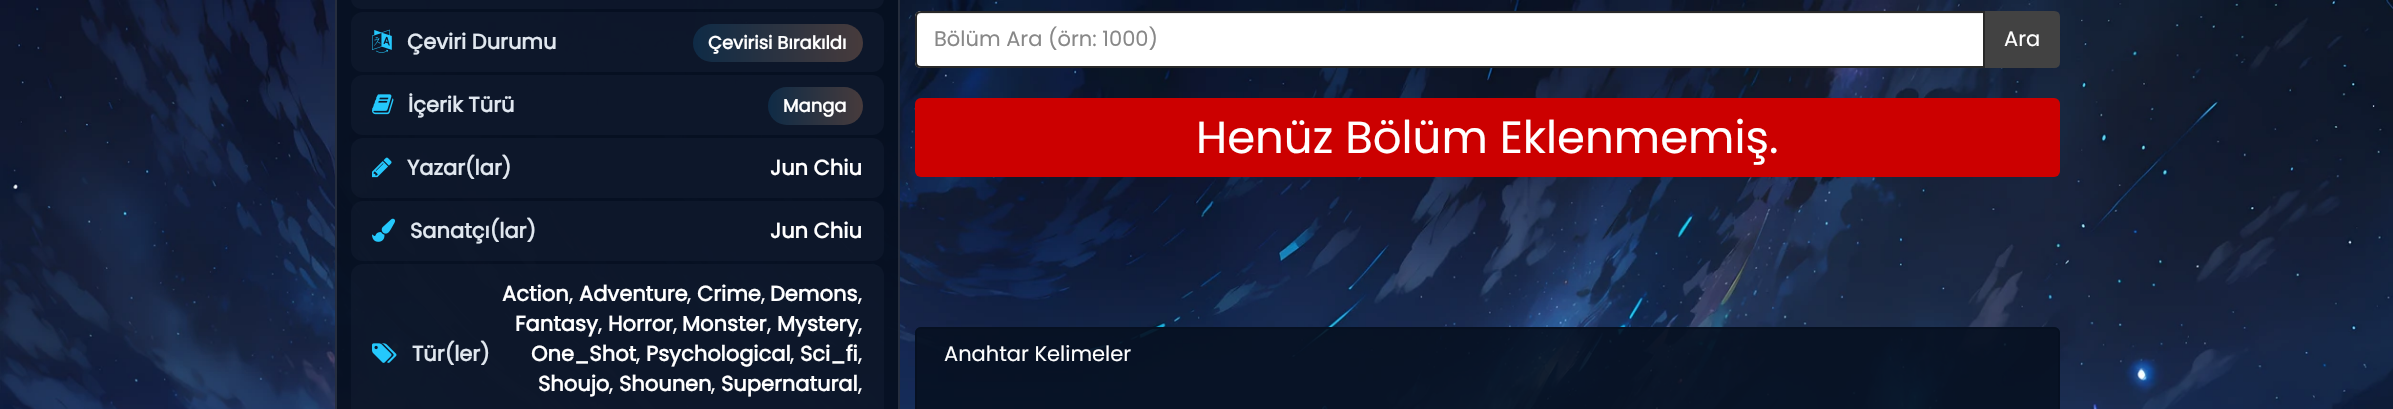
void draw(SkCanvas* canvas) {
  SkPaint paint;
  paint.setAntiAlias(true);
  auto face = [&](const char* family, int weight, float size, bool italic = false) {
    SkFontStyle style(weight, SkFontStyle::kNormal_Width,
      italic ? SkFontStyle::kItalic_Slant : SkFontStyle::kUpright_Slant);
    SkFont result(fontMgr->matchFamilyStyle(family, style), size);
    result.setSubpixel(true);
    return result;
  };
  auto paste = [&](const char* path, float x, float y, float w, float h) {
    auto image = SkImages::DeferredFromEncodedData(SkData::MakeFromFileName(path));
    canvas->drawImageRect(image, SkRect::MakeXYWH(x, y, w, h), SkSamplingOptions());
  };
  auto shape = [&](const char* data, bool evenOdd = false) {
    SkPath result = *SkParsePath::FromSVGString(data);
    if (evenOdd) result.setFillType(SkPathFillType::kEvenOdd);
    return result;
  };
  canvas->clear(0xffffffff);
  paste("img/1.png", 0, 0, 2393, 409);
  paint.setColor(0xf0050f20);
  canvas->drawRect(SkRect::MakeXYWH(335, 0, 565, 409), paint);
  paint.setStroke(true);
  paint.setStrokeWidth(2);
  paint.setColor(0x1fffffff);
  canvas->drawRect(SkRect::MakeXYWH(336, -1, 563, 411), paint);
  paint.setStroke(false);
  paint.setColor(0x99111b2e);
  canvas->drawRoundRect(SkRect::MakeXYWH(351, -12, 533, 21), 12, 12, paint);
  canvas->drawRoundRect(SkRect::MakeXYWH(351, 12, 533, 60), 12, 12, paint);
  paste("img/2.png", 372, 29, 20, 24);
  {
    const SkColor colors[] = {0xff0f2b46, 0xff473b3c};
    const float stops[] = {0, 1};
    const SkPoint ends[] = {{693, 43}, {863, 43}};
    paint.setShader(SkGradientShader::MakeLinear(ends, colors, stops, 2, SkTileMode::kClamp));
    paint.setAlpha(255);
  }
  canvas->drawRoundRect(SkRect::MakeXYWH(693, 24, 170, 38), 19, 19, paint);
  paint.setShader(nullptr);
  paint.setColor(0x99111b2e);
  canvas->drawRoundRect(SkRect::MakeXYWH(351, 75, 533, 60), 12, 12, paint);
  paste("img/3.png", 372, 94, 22, 21);
  {
    const SkColor colors[] = {0xff0f2b46, 0xff473b3c};
    const float stops[] = {0, 1};
    const SkPoint ends[] = {{768, 106}, {863, 106}};
    paint.setShader(SkGradientShader::MakeLinear(ends, colors, stops, 2, SkTileMode::kClamp));
    paint.setAlpha(255);
  }
  canvas->drawRoundRect(SkRect::MakeXYWH(768, 87, 95, 38), 19, 19, paint);
  paint.setShader(nullptr);
  paint.setColor(0x99111b2e);
  canvas->drawRoundRect(SkRect::MakeXYWH(351, 138, 533, 60), 12, 12, paint);
  paste("img/4.png", 372, 157, 20, 21);
  canvas->drawRoundRect(SkRect::MakeXYWH(351, 201, 533, 60), 12, 12, paint);
  paste("img/5.png", 372, 218, 24, 24);
  canvas->drawRoundRect(SkRect::MakeXYWH(351, 264, 533, 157), 12, 12, paint);
  paste("img/6.png", 372, 343, 25, 20);
  paint.setColor(0xffffffff);
  canvas->drawPath(shape("M921 11H1985V68H921C917.5 68 915 65.5 915 62V17C915 13.5 917.5 11 921 11Z"), paint);
  paint.setColor(0xffececec);
  canvas->drawPath(shape("M921 14H1983V12H922C920 12 918 14 917 16C918 15 920 14 921 14Z"), paint);
  paint.setStroke(true);
  paint.setColor(0xff282828);
  canvas->drawPath(shape("M921 12H1984V67H921C918 67 916 65 916 62V17C916 14 918 12 921 12Z"), paint);
  paint.setStroke(false);
  paint.setColor(0xff424242);
  canvas->drawPath(shape("M1986 12H2054C2057 12 2059 14 2059 17V62C2059 65 2057 67 2054 67H1986Z"), paint);
  paint.setStroke(true);
  canvas->drawPath(shape("M1986 12H2054C2057 12 2059 14 2059 17V62C2059 65 2057 67 2054 67H1986Z"), paint);
  paint.setStroke(false);
  paint.setColor(0xffcc0000);
  canvas->drawRoundRect(SkRect::MakeXYWH(915, 98, 1145, 79), 6, 6, paint);
  paint.setColor(0xe6050f20);
  canvas->drawRoundRect(SkRect::MakeXYWH(915, 327, 1145, 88), 6, 6, paint);
  paint.setColor(0x0d000000);
  canvas->drawPath(shape("M921 330H2054C2056 330 2058 332 2058 334C2058 331 2056 329 2053 329H922C920 329 919 330 918 331Z"), paint);
  paint.setStroke(true);
  paint.setColor(0xe6050f20);
  canvas->drawRoundRect(SkRect::MakeXYWH(916, 328, 1143, 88), 5, 5, paint);
  auto f0 = face("Poppins", 700, 21);
  paint.setStroke(false);
  paint.setColor(0xffe0e7ef);
  canvas->drawString("Çeviri Durumu", 407, 49, f0, paint);
  auto f1 = face("Poppins", 700, 18);
  paint.setColor(0xffffffff);
  canvas->drawString("Çevirisi Bırakıldı", 708, 49, f1, paint);
  paint.setColor(0xffe0e7ef);
  canvas->drawString("İçerik Türü", 408, 112, f0, paint);
  paint.setColor(0xffffffff);
  canvas->drawString("Manga", 783, 112, f1, paint);
  paint.setColor(0xffe0e7ef);
  canvas->drawString("Yazar(lar)", 407, 175, f0, paint);
  paint.setColor(0xffffffff);
  canvas->drawString("Jun Chiu", 770, 175, f0, paint);
  paint.setColor(0xffe0e7ef);
  canvas->drawString("Sanatçı(lar)", 410, 238, f0, paint);
  paint.setColor(0xffffffff);
  canvas->drawString("Jun Chiu", 770, 238, f0, paint);
  paint.setColor(0xffe0e7ef);
  canvas->drawString("Tür(ler)", 412, 361, f0, paint);
  paint.setColor(0xffffffff);
  canvas->drawString("Action", 502, 301, f0, paint);
  auto f2 = face("Poppins", 400, 21);
  canvas->drawString(",", 569, 301, f2, paint);
  canvas->drawString("Adventure", 579, 301, f0, paint);
  canvas->drawString(",", 687, 301, f2, paint);
  canvas->drawString("Crime", 697, 301, f0, paint);
  canvas->drawString(",", 761, 301, f2, paint);
  canvas->drawString("Demons", 770, 301, f0, paint);
  canvas->drawString(",", 858, 301, f2, paint);
  canvas->drawString("Fantasy", 515, 331, f0, paint);
  canvas->drawString(",", 598, 331, f2, paint);
  canvas->drawString("Horror", 608, 331, f0, paint);
  canvas->drawString(",", 673, 331, f2, paint);
  canvas->drawString("Monster", 682, 331, f0, paint);
  canvas->drawString(",", 767, 331, f2, paint);
  canvas->drawString("Mystery", 777, 331, f0, paint);
  canvas->drawString(",", 858, 331, f2, paint);
  canvas->drawString("One_Shot", 531, 361, f0, paint);
  canvas->drawString(",", 636, 361, f2, paint);
  canvas->drawString("Psychological", 646, 361, f0, paint);
  canvas->drawString(",", 790, 361, f2, paint);
  canvas->drawString("Sci_fi", 800, 361, f0, paint);
  canvas->drawString(",", 858, 361, f2, paint);
  canvas->drawString("Shoujo", 538, 391, f0, paint);
  canvas->drawString(",", 609, 391, f2, paint);
  canvas->drawString("Shounen", 619, 391, f0, paint);
  canvas->drawString(",", 711, 391, f2, paint);
  canvas->drawString("Supernatural", 721, 391, f0, paint);
  canvas->drawString(",", 858, 391, f2, paint);
  paint.setColor(0xff888888);
  canvas->drawString("Bölüm Ara (örn: 1000)", 934, 46, f2, paint);
  paint.setColor(0xffffffff);
  canvas->drawString("Ara", 2004, 46, f2, paint);
  auto f3 = face("Poppins", 400, 45);
  canvas->drawString("Henüz Bölüm Eklenmemiş.", 1196, 153, f3, paint);
  canvas->drawString("Anahtar Kelimeler", 944, 361, f2, paint);
}
